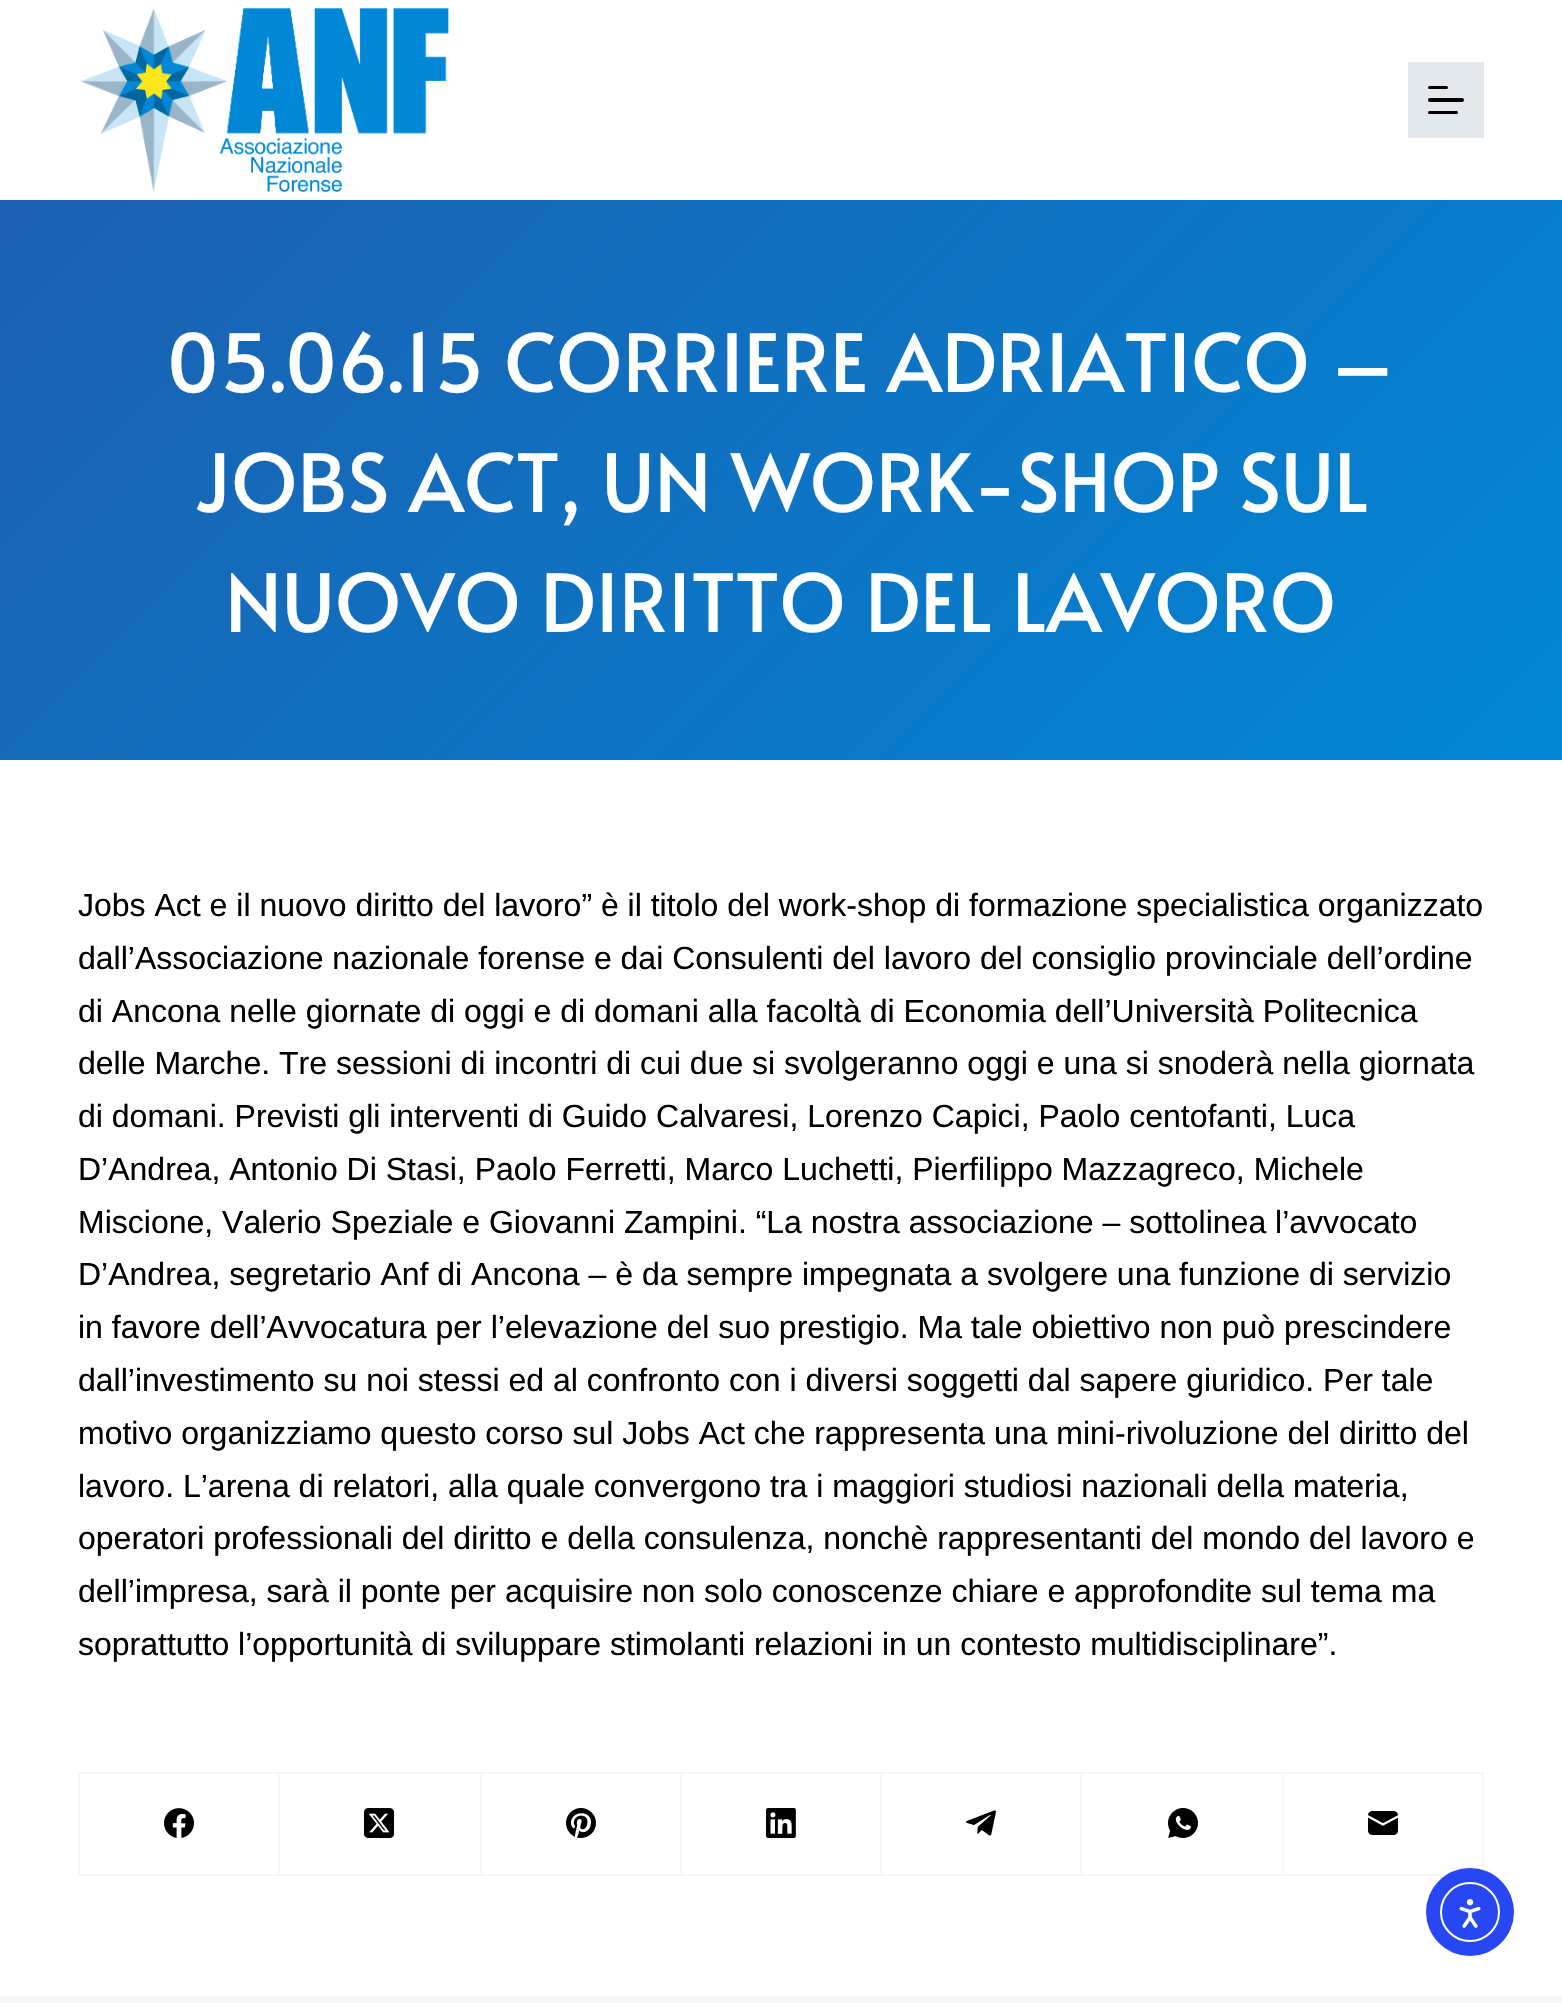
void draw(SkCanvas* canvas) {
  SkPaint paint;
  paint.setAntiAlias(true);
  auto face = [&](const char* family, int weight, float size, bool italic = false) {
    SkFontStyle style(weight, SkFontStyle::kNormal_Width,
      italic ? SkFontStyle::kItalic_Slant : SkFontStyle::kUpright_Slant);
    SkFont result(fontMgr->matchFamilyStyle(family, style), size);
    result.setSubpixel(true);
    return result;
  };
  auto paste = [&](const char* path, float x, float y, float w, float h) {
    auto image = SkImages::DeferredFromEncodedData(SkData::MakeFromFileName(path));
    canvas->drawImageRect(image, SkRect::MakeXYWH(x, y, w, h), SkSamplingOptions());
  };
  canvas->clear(0xffffffff);
  paste("img/1.png", 80, 8, 369, 184);
  paint.setColor(0xffe3e8ed);
  canvas->drawRect(SkRect::MakeXYWH(1408, 62, 76, 76), paint);
  paint.setColor(0xff000000);
  canvas->drawRoundRect(SkRect::MakeXYWH(1428, 86, 20, 3), 1.5f, 1.5f, paint);
  canvas->drawRoundRect(SkRect::MakeXYWH(1428, 98, 36, 4), 2, 2, paint);
  canvas->drawRoundRect(SkRect::MakeXYWH(1428, 111, 30, 3), 1.5f, 1.5f, paint);
  {
    const SkColor colors[] = {0xff1d5faf, 0xff0087d6};
    const float stops[] = {0, 1};
    const SkPoint ends[] = {{250, -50}, {1312, 1011}};
    paint.setShader(SkGradientShader::MakeLinear(ends, colors, stops, 2, SkTileMode::kClamp));
    paint.setAlpha(255);
  }
  canvas->drawRect(SkRect::MakeXYWH(0, 200, 1562, 560), paint);
  paint.setShader(nullptr);
  {
    const struct { float x, y, w, h; SkColor color; } items[] = {
      {78, 1772, 1406, 2, 0xfff6f6f6},
      {78, 1772, 2, 104, 0xfff6f6f6},
      {278, 1774, 2, 102, 0xfff6f6f6},
      {80, 1874, 200, 2, 0xfff6f6f6},
    };
    for (auto [x, y, w, h, color] : items) {
      paint.setColor(color);
      canvas->drawRect(SkRect::MakeXYWH(x, y, w, h), paint);
    }
  }
  paste("img/2.png", 164, 1808, 30, 30);
  canvas->drawRect(SkRect::MakeXYWH(480, 1774, 2, 102), paint);
  canvas->drawRect(SkRect::MakeXYWH(280, 1874, 202, 2), paint);
  paste("img/3.png", 364, 1808, 30, 30);
  canvas->drawRect(SkRect::MakeXYWH(680, 1774, 2, 102), paint);
  canvas->drawRect(SkRect::MakeXYWH(482, 1874, 200, 2), paint);
  paste("img/4.png", 566, 1808, 30, 30);
  canvas->drawRect(SkRect::MakeXYWH(880, 1774, 2, 102), paint);
  canvas->drawRect(SkRect::MakeXYWH(682, 1874, 200, 2), paint);
  paste("img/5.png", 766, 1808, 30, 30);
  canvas->drawRect(SkRect::MakeXYWH(1080, 1774, 2, 102), paint);
  canvas->drawRect(SkRect::MakeXYWH(882, 1874, 200, 2), paint);
  paste("img/6.png", 966, 1810, 30, 26);
  canvas->drawRect(SkRect::MakeXYWH(1282, 1774, 2, 102), paint);
  canvas->drawRect(SkRect::MakeXYWH(1082, 1874, 366, 2), paint);
  paste("img/7.png", 1168, 1808, 30, 30);
  canvas->drawRect(SkRect::MakeXYWH(1482, 1774, 2, 102), paint);
  paste("img/8.png", 1368, 1811, 30, 24);
  canvas->drawRect(SkRect::MakeXYWH(0, 1996, 1562, 7), paint);
  paint.setColor(0xff2847f3);
  canvas->drawCircle(1470, 1912, 44, paint);
  paint.setStroke(true);
  paint.setStrokeWidth(2);
  paint.setColor(0xffffffff);
  canvas->drawCircle(1470, 1912, 29, paint);
  paste("img/9.png", 1459, 1899, 22, 29);
  auto f0 = face("Alata", 400, 80);
  paint.setStroke(false);
  {
    const struct { const char* s; float x, y; } items[] = {
      {"05.06.15 CORRIERE ADRIATICO –", 167, 392},
      {"JOBS ACT, UN WORK-SHOP SUL", 194, 512},
      {"NUOVO DIRITTO DEL LAVORO", 225, 632},
    };
    for (auto [s, x, y] : items) {
      canvas->drawString(s, x, y, f0, paint);
    }
  }
  auto f1 = face("Liberation Sans", 400, 32);
  paint.setColor(0xff000000);
  {
    const struct { const char* s; float x, y; } items[] = {
      {"Jobs Act e il nuovo diritto del lavoro” è il titolo del work-shop di formazione specialistica organizzato", 78, 916},
      {"dall’Associazione nazionale forense e dai Consulenti del lavoro del consiglio provinciale dell’ordine", 78, 969},
      {"di Ancona nelle giornate di oggi e di domani alla facoltà di Economia dell’Università Politecnica", 78, 1022},
      {"delle Marche. Tre sessioni di incontri di cui due si svolgeranno oggi e una si snoderà nella giornata", 78, 1074},
      {"di domani. Previsti gli interventi di Guido Calvaresi, Lorenzo Capici, Paolo centofanti, Luca", 78, 1127},
      {"D’Andrea, Antonio Di Stasi, Paolo Ferretti, Marco Luchetti, Pierfilippo Mazzagreco, Michele", 78, 1180},
      {"Miscione, Valerio Speziale e Giovanni Zampini. “La nostra associazione – sottolinea l’avvocato", 78, 1233},
      {"D’Andrea, segretario Anf di Ancona – è da sempre impegnata a svolgere una funzione di servizio", 78, 1285},
      {"in favore dell’Avvocatura per l’elevazione del suo prestigio. Ma tale obiettivo non può prescindere", 78, 1338},
      {"dall’investimento su noi stessi ed al confronto con i diversi soggetti dal sapere giuridico. Per tale", 78, 1391},
      {"motivo organizziamo questo corso sul Jobs Act che rappresenta una mini-rivoluzione del diritto del", 78, 1444},
      {"lavoro. L’arena di relatori, alla quale convergono tra i maggiori studiosi nazionali della materia,", 78, 1497},
      {"operatori professionali del diritto e della consulenza, nonchè rappresentanti del mondo del lavoro e", 78, 1549},
      {"dell’impresa, sarà il ponte per acquisire non solo conoscenze chiare e approfondite sul tema ma", 78, 1602},
      {"soprattutto l’opportunità di sviluppare stimolanti relazioni in un contesto multidisciplinare”.", 78, 1655},
    };
    for (auto [s, x, y] : items) {
      canvas->drawString(s, x, y, f1, paint);
    }
  }
}
